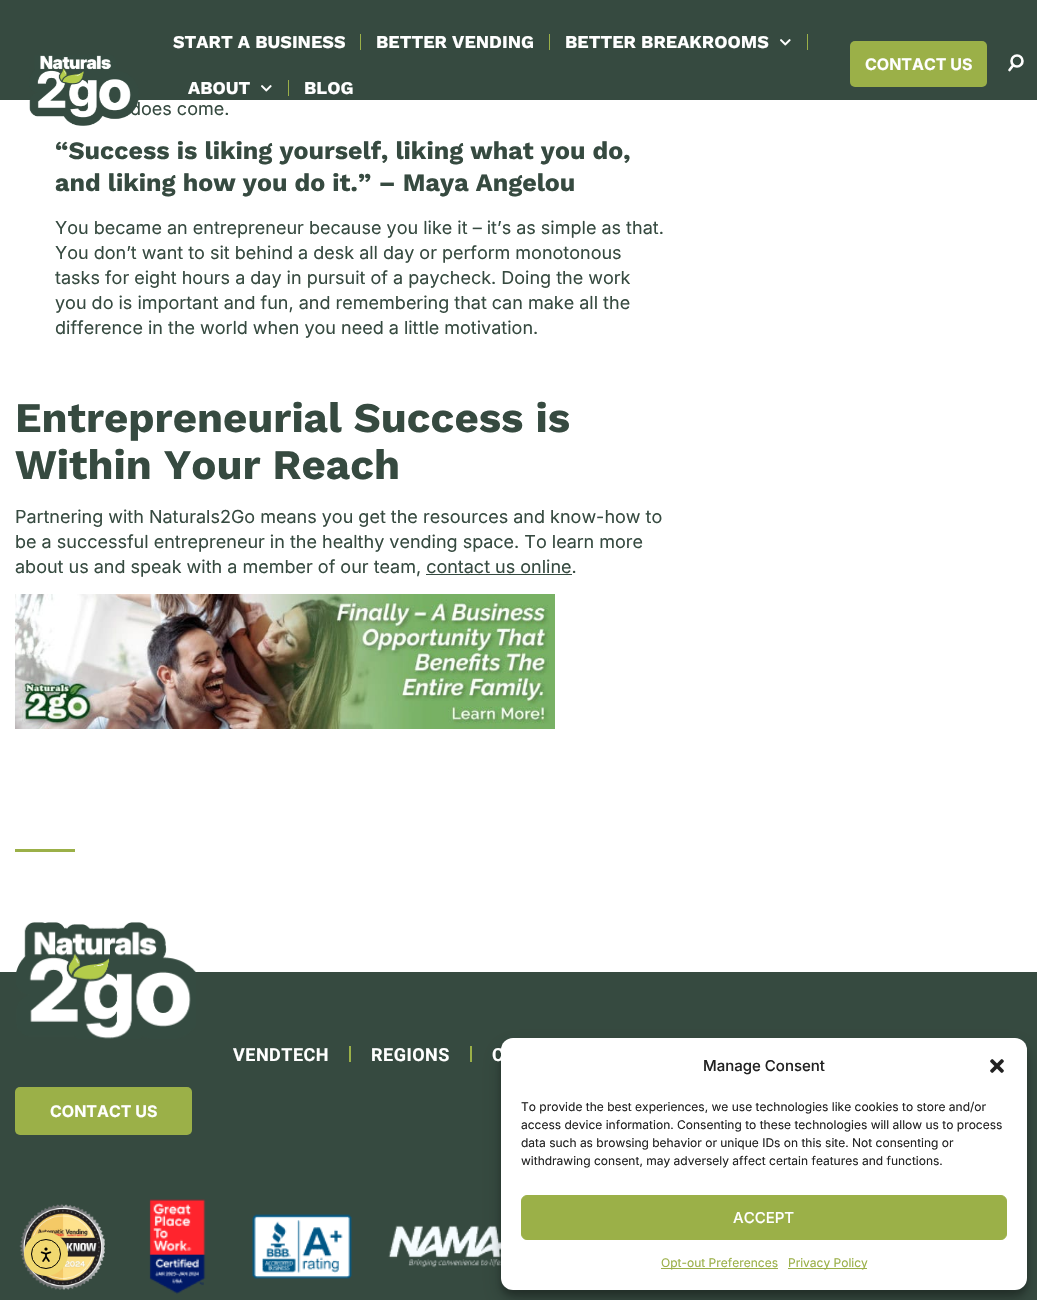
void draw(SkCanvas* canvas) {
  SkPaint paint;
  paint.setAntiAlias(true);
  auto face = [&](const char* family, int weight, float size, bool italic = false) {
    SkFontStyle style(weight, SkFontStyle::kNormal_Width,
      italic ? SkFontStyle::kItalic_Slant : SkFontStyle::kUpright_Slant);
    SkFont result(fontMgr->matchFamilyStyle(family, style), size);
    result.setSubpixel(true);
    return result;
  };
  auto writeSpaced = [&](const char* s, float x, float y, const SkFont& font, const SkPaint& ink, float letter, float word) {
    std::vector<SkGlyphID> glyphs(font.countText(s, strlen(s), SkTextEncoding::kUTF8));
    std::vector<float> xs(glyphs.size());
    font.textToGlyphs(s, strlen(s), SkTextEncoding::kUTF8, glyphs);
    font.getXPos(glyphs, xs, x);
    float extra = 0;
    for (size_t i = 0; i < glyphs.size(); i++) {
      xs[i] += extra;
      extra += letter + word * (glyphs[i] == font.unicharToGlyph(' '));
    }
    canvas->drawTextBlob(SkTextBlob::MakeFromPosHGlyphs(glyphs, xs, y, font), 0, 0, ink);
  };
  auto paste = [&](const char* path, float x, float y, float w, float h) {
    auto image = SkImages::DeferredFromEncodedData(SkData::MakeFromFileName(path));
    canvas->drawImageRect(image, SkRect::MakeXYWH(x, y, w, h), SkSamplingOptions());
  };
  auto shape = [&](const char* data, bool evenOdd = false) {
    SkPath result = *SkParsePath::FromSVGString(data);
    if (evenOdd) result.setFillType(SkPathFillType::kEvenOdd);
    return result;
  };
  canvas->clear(0xffffffff);
  {
    const struct { float x, y, w, h; SkColor color; } items[] = {
      {0, 0, 1037, 100, 0xff364a40},
      {360, 34, 1, 16, 0xff9bb048},
      {549, 34, 1, 16, 0xff9bb048},
    };
    for (auto [x, y, w, h, color] : items) {
      paint.setColor(color);
      canvas->drawRect(SkRect::MakeXYWH(x, y, w, h), paint);
    }
  }
  paste("img/2.png", 780, 39, 11, 7);
  canvas->drawRect(SkRect::MakeXYWH(807, 34, 1, 16), paint);
  paste("img/2.png", 261, 85, 11, 7);
  canvas->drawRect(SkRect::MakeXYWH(288, 80, 1, 16), paint);
  canvas->drawRoundRect(SkRect::MakeXYWH(850, 41, 137, 46), 5, 5, paint);
  paint.setStroke(true);
  paint.setStrokeWidth(2.6f);
  paint.setColor(0xffffffff);
  canvas->drawCircle(1017, 61, 5.5f, paint);
  paint.setStrokeCap(SkPaint::kRound_Cap);
  canvas->drawPath(shape("M1013 65.5L1009.5 70"), paint);
  paint.setStroke(false);
  paint.setColor(0xff364a40);
  canvas->drawRect(SkRect::MakeXYWH(426, 574, 146, 1), paint);
  paste("img/3.png", 15, 594, 540, 135);
  paint.setColor(0xff9bb048);
  canvas->drawRect(SkRect::MakeXYWH(15, 849, 60, 3), paint);
  paint.setColor(0xff364a40);
  canvas->drawRect(SkRect::MakeXYWH(0, 972, 1037, 328), paint);
  paste("img/6.png", 19, 1204, 86, 86);
  paint.setColor(0xfff1d870);
  canvas->drawCircle(46, 1254, 22, paint);
  paint.setStroke(true);
  paint.setStrokeWidth(1);
  paint.setStrokeCap(SkPaint::kButt_Cap);
  paint.setColor(0xff000000);
  canvas->drawCircle(46, 1254, 14.5f, paint);
  paste("img/4.png", 40, 1247, 12, 15);
  paste("img/5.png", 16, 922, 180, 117);
  paint.setStroke(false);
  paint.setColor(0xff9bb048);
  canvas->drawRect(SkRect::MakeXYWH(349, 1046, 2, 16), paint);
  canvas->drawRect(SkRect::MakeXYWH(470, 1046, 2, 16), paint);
  canvas->drawRoundRect(SkRect::MakeXYWH(15, 1087, 177, 48), 5, 5, paint);
  paste("img/7.png", 149, 1199, 57, 95);
  paste("img/8.png", 252, 1214, 100, 65);
  paste("img/9.png", 388, 1225, 113, 43);
  paint.setColor(0x3b000000);
  paint.setMaskFilter(SkMaskFilter::MakeBlur(kNormal_SkBlurStyle, 3));
  canvas->drawRoundRect(SkRect::MakeXYWH(501, 1044, 526, 252), 12, 12, paint);
  paint.setMaskFilter(nullptr);
  paint.setColor(0x30000000);
  paint.setMaskFilter(SkMaskFilter::MakeBlur(kNormal_SkBlurStyle, 10));
  canvas->drawRoundRect(SkRect::MakeXYWH(501, 1048, 526, 252), 12, 12, paint);
  paint.setMaskFilter(nullptr);
  paint.setColor(0xffffffff);
  canvas->drawRoundRect(SkRect::MakeXYWH(501, 1038, 526, 252), 12, 12, paint);
  paste("img/10.png", 990, 1059, 14, 14);
  paint.setColor(0xff9bb048);
  canvas->drawRoundRect(SkRect::MakeXYWH(521.5f, 1195.5f, 485, 44), 5.5f, 5.5f, paint);
  paint.setStroke(true);
  canvas->drawRoundRect(SkRect::MakeXYWH(521.5f, 1195.5f, 485, 44), 5.5f, 5.5f, paint);
  paint.setStroke(false);
  canvas->drawRect(SkRect::MakeXYWH(661, 1268, 117, 1), paint);
  canvas->drawRect(SkRect::MakeXYWH(788, 1268, 79, 1), paint);
  auto f0 = face("Work Sans", 700, 18);
  paint.setColor(0xffffffff);
  {
    const struct { const char* s; float x, y; } items[] = {
      {"START A BUSINESS", 173, 48},
      {"BETTER VENDING", 376, 48},
      {"BETTER BREAKROOMS", 565, 48},
      {"ABOUT", 188, 94},
      {"BLOG", 304, 94},
    };
    for (auto [s, x, y] : items) {
      canvas->drawString(s, x, y, f0, paint);
    }
  }
  auto f1 = face("Inter", 700, 16);
  canvas->drawString("CONTACT US", 865, 70, f1, paint);
  auto f2 = face("Inter", 400, 18);
  paint.setColor(0xff364a40);
  canvas->drawString("does come.", 130, 115, f2, paint);
  paste("img/1.png", 29, 55, 110, 71);
  auto f3 = face("Work Sans", 700, 25);
  canvas->drawString("“Success is liking yourself, liking what you do,", 55, 159, f3, paint);
  canvas->drawString("and liking how you do it.” – Maya Angelou", 55, 191, f3, paint);
  {
    const struct { const char* s; float x, y; } items[] = {
      {"You became an entrepreneur because you like it – it’s as simple as that.", 55, 234},
      {"You don’t want to sit behind a desk all day or perform monotonous", 55, 259},
      {"tasks for eight hours a day in pursuit of a paycheck. Doing the work", 55, 284},
      {"you do is important and fun, and remembering that can make all the", 55, 309},
      {"difference in the world when you need a little motivation.", 55, 334},
    };
    for (auto [s, x, y] : items) {
      canvas->drawString(s, x, y, f2, paint);
    }
  }
  auto f4 = face("Work Sans", 700, 42);
  canvas->drawString("Entrepreneurial Success is", 15, 432, f4, paint);
  canvas->drawString("Within Your Reach", 15, 479, f4, paint);
  {
    const struct { const char* s; float x, y; } items[] = {
      {"Partnering with Naturals2Go means you get the resources and know-how to", 15, 523},
      {"be a successful entrepreneur in the healthy vending space. To learn more", 15, 548},
      {"about us and speak with a member of our team, contact us online.", 15, 573},
    };
    for (auto [s, x, y] : items) {
      canvas->drawString(s, x, y, f2, paint);
    }
  }
  auto f5 = face("Roboto", 700, 18);
  paint.setColor(0xffffffff);
  {
    const struct { const char* s; float x, y; } items[] = {
      {"VENDTECH", 233, 1061},
      {"REGIONS", 371, 1061},
      {"C", 492, 1061},
    };
    for (auto [s, x, y] : items) {
      writeSpaced(s, x, y, f5, paint, 0.5f, 0);
    }
  }
  canvas->drawString("CONTACT US", 50, 1117, f1, paint);
  auto f6 = face("Inter", 500, 15);
  paint.setColor(0xff222222);
  canvas->drawString("Manage Consent", 703, 1071, f6, paint);
  auto f7 = face("Inter", 400, 12);
  {
    const struct { const char* s; float x, y; } items[] = {
      {"To provide the best experiences, we use technologies like cookies to store and/or", 521, 1111},
      {"access device information. Consenting to these technologies will allow us to process", 521, 1129},
      {"data such as browsing behavior or unique IDs on this site. Not consenting or", 521, 1147},
      {"withdrawing consent, may adversely affect certain features and functions.", 521, 1165},
    };
    for (auto [s, x, y] : items) {
      canvas->drawString(s, x, y, f7, paint);
    }
  }
  paint.setColor(0xffffffff);
  canvas->drawString("ACCEPT", 733, 1223, f6, paint);
  paint.setColor(0xff9bb048);
  canvas->drawString("Opt-out Preferences", 661, 1267, f7, paint);
  canvas->drawString("Privacy Policy", 788, 1267, f7, paint);
}
